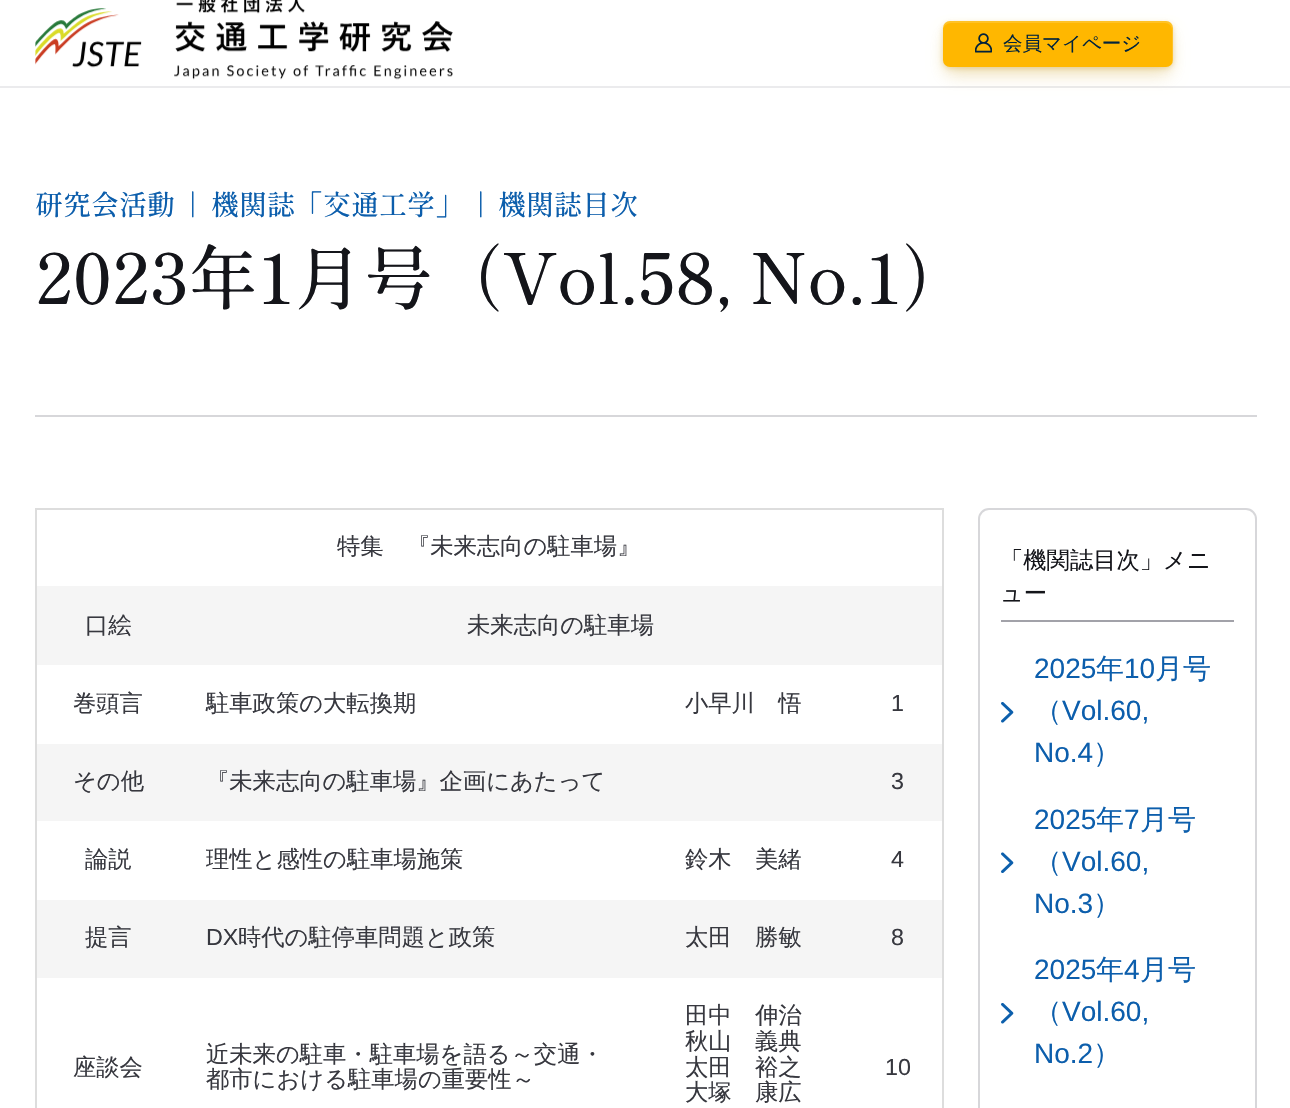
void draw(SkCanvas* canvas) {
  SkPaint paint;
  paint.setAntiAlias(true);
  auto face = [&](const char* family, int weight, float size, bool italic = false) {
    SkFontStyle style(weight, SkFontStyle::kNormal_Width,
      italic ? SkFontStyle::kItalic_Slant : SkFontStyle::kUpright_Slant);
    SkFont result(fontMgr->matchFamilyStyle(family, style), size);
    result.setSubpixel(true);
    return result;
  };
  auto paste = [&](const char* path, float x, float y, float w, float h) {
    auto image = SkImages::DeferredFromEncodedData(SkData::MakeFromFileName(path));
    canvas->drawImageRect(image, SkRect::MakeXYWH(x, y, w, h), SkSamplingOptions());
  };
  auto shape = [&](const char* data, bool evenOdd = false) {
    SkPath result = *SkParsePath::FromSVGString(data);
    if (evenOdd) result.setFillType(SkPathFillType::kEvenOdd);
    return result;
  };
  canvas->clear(0xffffffff);
  paint.setColor(0xffebebed);
  canvas->drawRect(SkRect::MakeXYWH(0, 86, 1290, 2), paint);
  paste("img/1.png", 35, 0, 418, 80);
  paint.setColor(0x40c28b00);
  paint.setMaskFilter(SkMaskFilter::MakeBlur(kNormal_SkBlurStyle, 9));
  canvas->drawRoundRect(SkRect::MakeXYWH(947, 35, 222, 39), 4, 4, paint);
  paint.setMaskFilter(nullptr);
  paint.setColor(0x1ac28b00);
  paint.setMaskFilter(SkMaskFilter::MakeBlur(kNormal_SkBlurStyle, 5));
  canvas->drawRoundRect(SkRect::MakeXYWH(943, 25, 230, 45), 7, 7, paint);
  paint.setMaskFilter(nullptr);
  paint.setColor(0x40c28b00);
  paint.setMaskFilter(SkMaskFilter::MakeBlur(kNormal_SkBlurStyle, 2.5f));
  canvas->drawRoundRect(SkRect::MakeXYWH(943, 23, 230, 45), 7, 7, paint);
  paint.setMaskFilter(nullptr);
  paint.setColor(0xffffb700);
  canvas->drawRoundRect(SkRect::MakeXYWH(943, 21, 230, 46), 7, 7, paint);
  paint.setColor(0x26ffffff);
  canvas->drawPath(shape("M951 23H1165C1169 23 1172 26 1172 30V61C1172 63 1172 64 1171 65C1172 64 1173 62 1173 60V28C1173 24 1170 21 1166 21H950C946 21 943 24 943 28V30C943 26 947 23 951 23Z"), paint);
  paste("img/2.png", 975, 33, 17, 20);
  {
    const struct { float x, y, w, h; SkColor color; } items[] = {
      {35, 415, 1222, 2, 0xffd7d7da},
      {35, 508, 908, 2, 0xffdddddd},
      {942, 508, 2, 600, 0xffdddddd},
      {35, 508, 2, 600, 0xffdddddd},
      {37, 586, 905, 79, 0xfff5f5f5},
      {37, 744, 905, 77, 0xfff5f5f5},
      {37, 900, 905, 78, 0xfff5f5f5},
    };
    for (auto [x, y, w, h, color] : items) {
      paint.setColor(color);
      canvas->drawRect(SkRect::MakeXYWH(x, y, w, h), paint);
    }
  }
  paint.setStroke(true);
  paint.setStrokeWidth(2);
  paint.setColor(0xffd7d7da);
  canvas->drawRoundRect(SkRect::MakeXYWH(979, 509, 277, 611), 10, 10, paint);
  paint.setStroke(false);
  paint.setColor(0xffa2a2a9);
  canvas->drawRect(SkRect::MakeXYWH(1001, 620, 233, 2), paint);
  paste("img/3.png", 1001, 702, 13, 21);
  paste("img/4.png", 1001, 852, 13, 21);
  paste("img/3.png", 1001, 1003, 13, 21);
  auto f0 = face("WenQuanYi Zen Hei", 500, 19.5f);
  paint.setColor(0xff00233d);
  canvas->drawString("会員マイページ", 1003, 50, f0, paint);
  auto f1 = face("Shippori Mincho B1", 500, 28);
  paint.setColor(0xff0c5eac);
  {
    const struct { const char* s; float x, y; } items[] = {
      {"研究会活動", 35, 215},
      {"|", 189, 215},
      {"機関誌「交通工学」", 211, 215},
      {"|", 477, 215},
      {"機関誌目次", 498, 215},
    };
    for (auto [s, x, y] : items) {
      canvas->drawString(s, x, y, f1, paint);
    }
  }
  auto f2 = face("Shippori Mincho B1", 500, 69.7f);
  paint.setColor(0xff14151a);
  canvas->drawString("2023年1月号（Vol.58, No.1）", 35, 304, f2, paint);
  auto f3 = face("WenQuanYi Zen Hei", 500, 23.3f);
  paint.setColor(0xff37383f);
  {
    const struct { const char* s; float x, y; } items[] = {
      {"特集　『未来志向の駐車場』", 337, 554},
      {"口絵", 85, 633},
      {"未来志向の駐車場", 467, 633},
      {"巻頭言", 73, 711},
      {"駐車政策の大転換期", 206, 711},
      {"小早川　悟", 685, 711},
    };
    for (auto [s, x, y] : items) {
      canvas->drawString(s, x, y, f3, paint);
    }
  }
  auto f4 = face("Liberation Sans", 400, 23.3f);
  canvas->drawString("1", 891, 711, f4, paint);
  canvas->drawString("その他", 73, 789, f3, paint);
  canvas->drawString("『未来志向の駐車場』企画にあたって", 206, 789, f3, paint);
  canvas->drawString("3", 891, 789, f4, paint);
  {
    const struct { const char* s; float x, y; } items[] = {
      {"論説", 85, 867},
      {"理性と感性の駐車場施策", 206, 867},
      {"鈴木　美緒", 685, 867},
    };
    for (auto [s, x, y] : items) {
      canvas->drawString(s, x, y, f3, paint);
    }
  }
  canvas->drawString("4", 891, 867, f4, paint);
  canvas->drawString("提言", 85, 945, f3, paint);
  canvas->drawString("DX", 206, 945, f4, paint);
  canvas->drawString("時代の駐停車問題と政策", 238, 945, f3, paint);
  canvas->drawString("太田　勝敏", 685, 945, f3, paint);
  canvas->drawString("8", 891, 945, f4, paint);
  {
    const struct { const char* s; float x, y; } items[] = {
      {"座談会", 73, 1075},
      {"近未来の駐車・駐車場を語る～交通・", 206, 1062},
      {"都市における駐車場の重要性～", 206, 1087},
      {"田中　伸治", 685, 1023},
      {"秋山　義典", 685, 1049},
      {"太田　裕之", 685, 1075},
      {"大塚　康広", 685, 1100},
    };
    for (auto [s, x, y] : items) {
      canvas->drawString(s, x, y, f3, paint);
    }
  }
  canvas->drawString("10", 885, 1075, f4, paint);
  paint.setColor(0xff14151a);
  canvas->drawString("「機関誌目次」メニ", 1000, 568, f3, paint);
  canvas->drawString("ュー", 1000, 601, f3, paint);
  auto f5 = face("Liberation Sans", 400, 28);
  paint.setColor(0xff0c5eac);
  canvas->drawString("2025", 1034, 678, f5, paint);
  auto f6 = face("WenQuanYi Zen Hei", 500, 28);
  canvas->drawString("年", 1096, 678, f6, paint);
  canvas->drawString("10", 1124, 678, f5, paint);
  canvas->drawString("月号", 1155, 678, f6, paint);
  canvas->drawString("（", 1034, 720, f6, paint);
  canvas->drawString("Vol.60,", 1062, 720, f5, paint);
  canvas->drawString("No.4", 1034, 762, f5, paint);
  canvas->drawString("）", 1093, 762, f6, paint);
  canvas->drawString("2025", 1034, 829, f5, paint);
  canvas->drawString("年", 1096, 829, f6, paint);
  canvas->drawString("7", 1124, 829, f5, paint);
  canvas->drawString("月号", 1140, 829, f6, paint);
  canvas->drawString("（", 1034, 871, f6, paint);
  canvas->drawString("Vol.60,", 1062, 871, f5, paint);
  canvas->drawString("No.3", 1034, 913, f5, paint);
  canvas->drawString("）", 1093, 913, f6, paint);
  canvas->drawString("2025", 1034, 979, f5, paint);
  canvas->drawString("年", 1096, 979, f6, paint);
  canvas->drawString("4", 1124, 979, f5, paint);
  canvas->drawString("月号", 1140, 979, f6, paint);
  canvas->drawString("（", 1034, 1021, f6, paint);
  canvas->drawString("Vol.60,", 1062, 1021, f5, paint);
  canvas->drawString("No.2", 1034, 1063, f5, paint);
  canvas->drawString("）", 1093, 1063, f6, paint);
}
